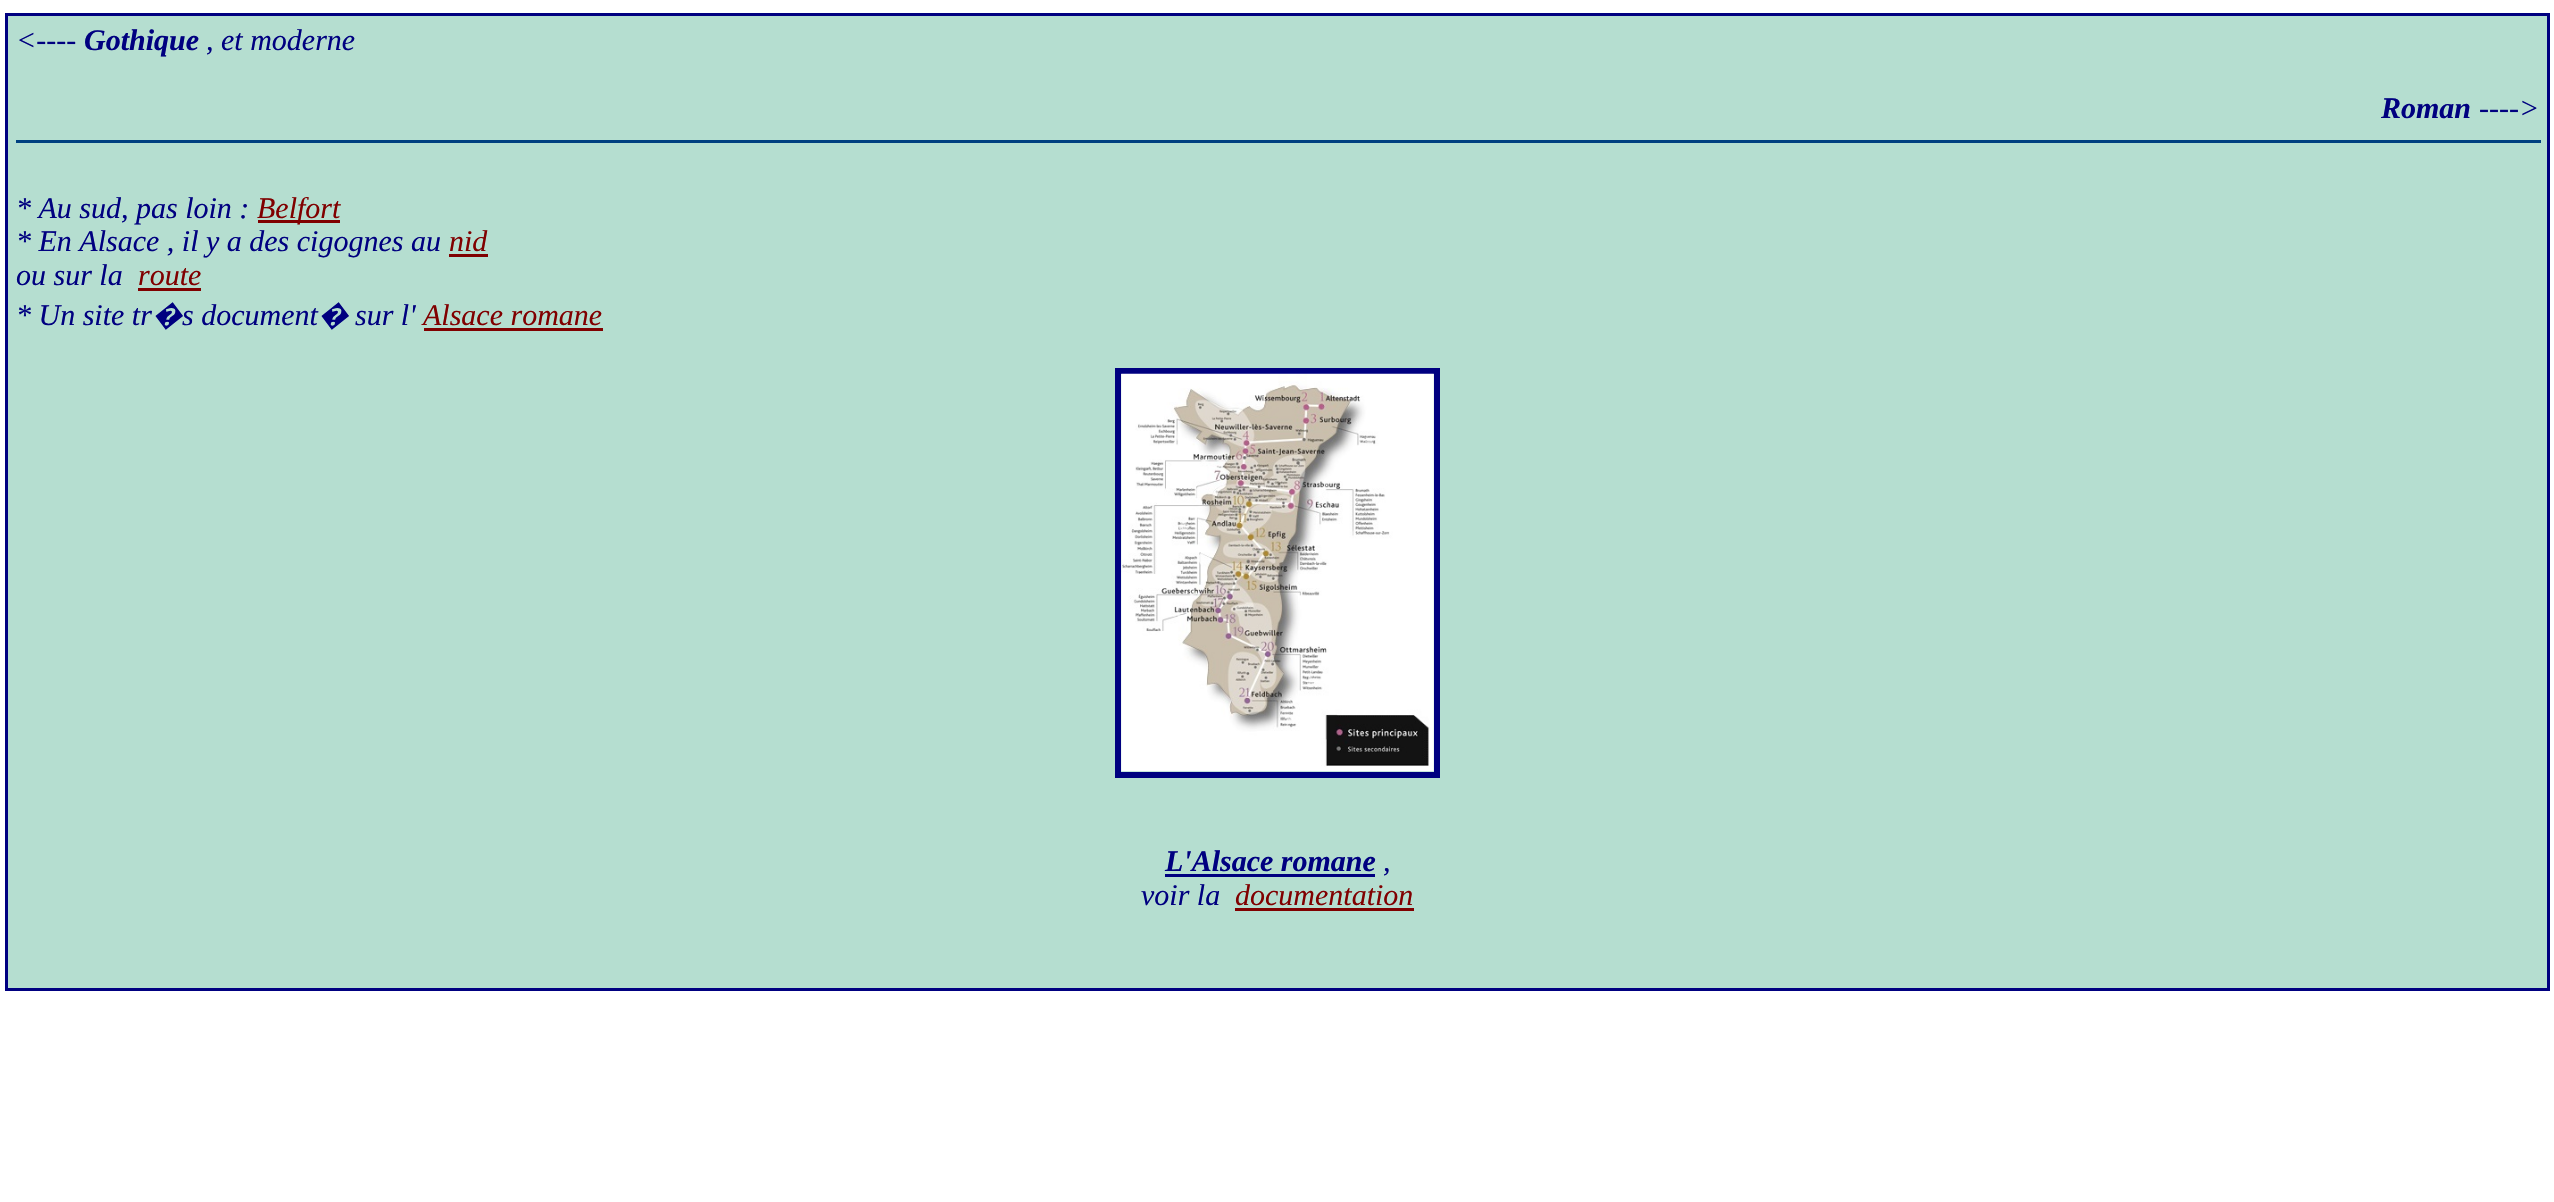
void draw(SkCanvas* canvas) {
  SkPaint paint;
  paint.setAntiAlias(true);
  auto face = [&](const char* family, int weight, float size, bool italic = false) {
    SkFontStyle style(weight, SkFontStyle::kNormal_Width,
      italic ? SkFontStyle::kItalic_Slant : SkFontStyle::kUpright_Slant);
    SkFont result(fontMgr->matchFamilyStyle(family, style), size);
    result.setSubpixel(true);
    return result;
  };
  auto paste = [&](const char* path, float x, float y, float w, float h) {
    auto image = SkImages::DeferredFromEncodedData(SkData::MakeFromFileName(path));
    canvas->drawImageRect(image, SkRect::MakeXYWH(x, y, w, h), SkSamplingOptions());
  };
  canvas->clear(0xffffffff);
  paint.setColor(0xffb5ded0);
  canvas->drawRect(SkRect::MakeXYWH(6.5f, 14.5f, 2542, 975), paint);
  paint.setStroke(true);
  paint.setStrokeWidth(3);
  paint.setColor(0xff000080);
  canvas->drawRect(SkRect::MakeXYWH(6.5f, 14.5f, 2542, 975), paint);
  paint.setStroke(false);
  {
    const struct { float x, y, w, h; SkColor color; } items[] = {
      {16, 140, 2525, 3, 0xff004080},
      {258, 220, 82, 3, 0xff800000},
      {449, 254, 39, 3, 0xff800000},
      {138, 288, 63, 3, 0xff800000},
      {424, 328, 179, 3, 0xff800000},
    };
    for (auto [x, y, w, h, color] : items) {
      paint.setColor(color);
      canvas->drawRect(SkRect::MakeXYWH(x, y, w, h), paint);
    }
  }
  paint.setStroke(true);
  paint.setStrokeWidth(6);
  paint.setColor(0xff000080);
  canvas->drawRect(SkRect::MakeXYWH(1118, 371, 319, 404), paint);
  paste("img/1.png", 1121, 373, 313, 399);
  paint.setStroke(false);
  canvas->drawRect(SkRect::MakeXYWH(1165, 874, 210, 3), paint);
  paint.setColor(0xff800000);
  canvas->drawRect(SkRect::MakeXYWH(1235, 908, 179, 3), paint);
  auto f0 = face("Liberation Serif", 400, 30, true);
  paint.setColor(0xff000080);
  canvas->drawString("<----", 16, 50, f0, paint);
  auto f1 = face("Liberation Serif", 700, 30, true);
  canvas->drawString("Gothique", 84, 50, f1, paint);
  canvas->drawString(", et moderne", 206, 50, f0, paint);
  canvas->drawString("Roman", 2381, 118, f1, paint);
  canvas->drawString("---->", 2479, 118, f0, paint);
  canvas->drawString("* Au sud, pas loin :", 16, 218, f0, paint);
  paint.setColor(0xff800000);
  canvas->drawString("Belfort", 257, 218, f0, paint);
  paint.setColor(0xff000080);
  canvas->drawString("* En Alsace , il y a des cigognes au", 16, 251, f0, paint);
  paint.setColor(0xff800000);
  canvas->drawString("nid", 449, 251, f0, paint);
  paint.setColor(0xff000080);
  canvas->drawString("ou sur la", 16, 285, f0, paint);
  paint.setColor(0xff800000);
  canvas->drawString("route", 138, 285, f0, paint);
  paint.setColor(0xff000080);
  canvas->drawString("* Un site tr", 16, 325, f0, paint);
  auto f2 = face("Noto Sans", 400, 30, true);
  canvas->drawString("�", 152, 325, f2, paint);
  canvas->drawString("s document", 182, 325, f0, paint);
  canvas->drawString("�", 318, 325, f2, paint);
  canvas->drawString("sur l'", 355, 325, f0, paint);
  paint.setColor(0xff800000);
  canvas->drawString("Alsace romane", 423, 325, f0, paint);
  paint.setColor(0xff000080);
  canvas->drawString("L'Alsace romane", 1165, 871, f1, paint);
  canvas->drawString(",", 1383, 871, f0, paint);
  canvas->drawString("voir la", 1141, 905, f0, paint);
  paint.setColor(0xff800000);
  canvas->drawString("documentation", 1235, 905, f0, paint);
}
